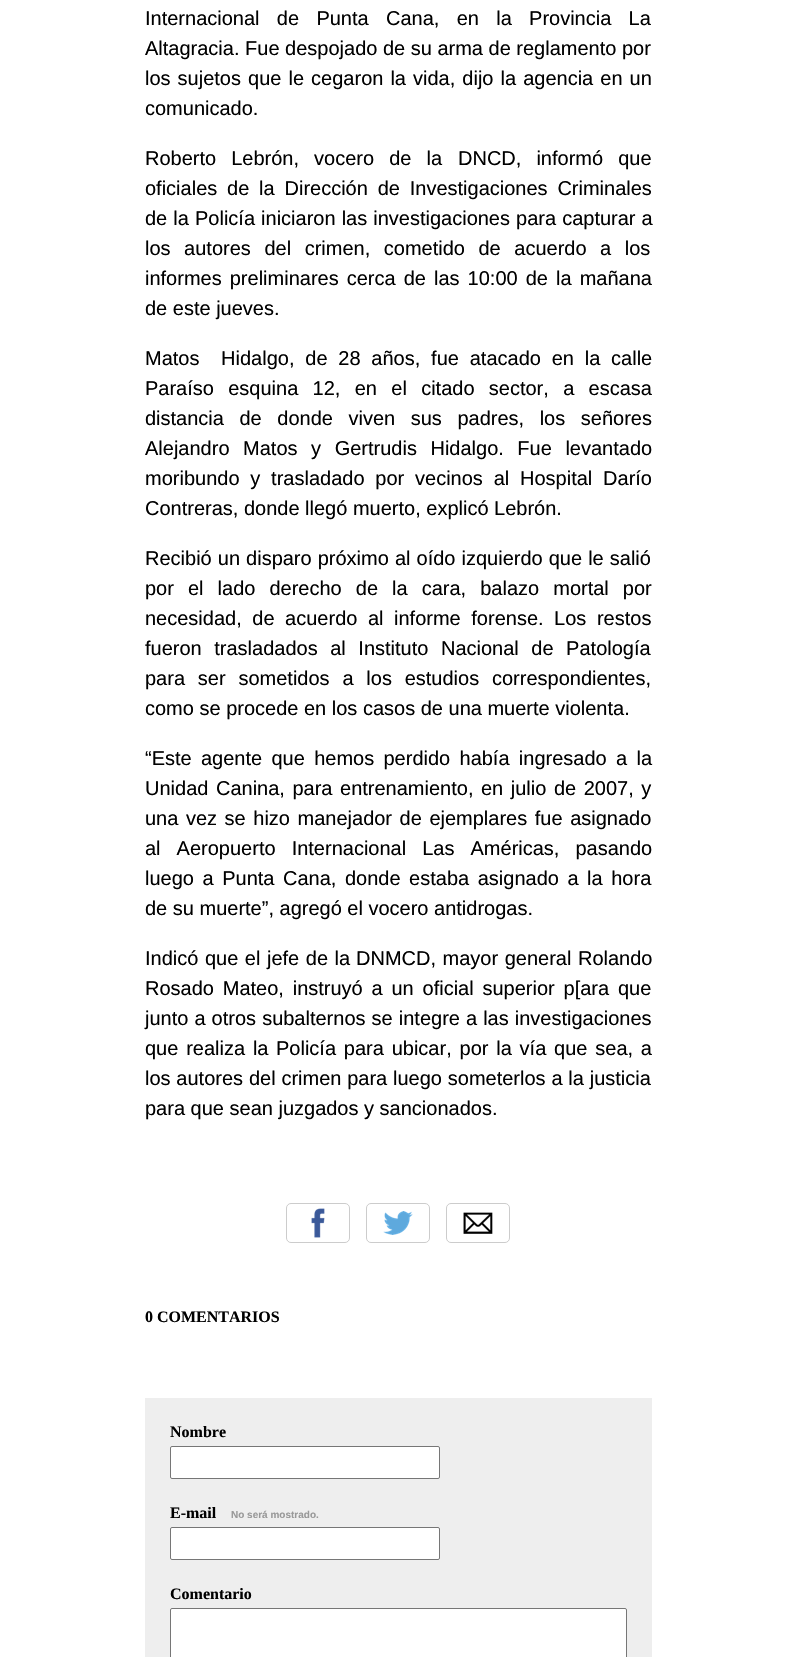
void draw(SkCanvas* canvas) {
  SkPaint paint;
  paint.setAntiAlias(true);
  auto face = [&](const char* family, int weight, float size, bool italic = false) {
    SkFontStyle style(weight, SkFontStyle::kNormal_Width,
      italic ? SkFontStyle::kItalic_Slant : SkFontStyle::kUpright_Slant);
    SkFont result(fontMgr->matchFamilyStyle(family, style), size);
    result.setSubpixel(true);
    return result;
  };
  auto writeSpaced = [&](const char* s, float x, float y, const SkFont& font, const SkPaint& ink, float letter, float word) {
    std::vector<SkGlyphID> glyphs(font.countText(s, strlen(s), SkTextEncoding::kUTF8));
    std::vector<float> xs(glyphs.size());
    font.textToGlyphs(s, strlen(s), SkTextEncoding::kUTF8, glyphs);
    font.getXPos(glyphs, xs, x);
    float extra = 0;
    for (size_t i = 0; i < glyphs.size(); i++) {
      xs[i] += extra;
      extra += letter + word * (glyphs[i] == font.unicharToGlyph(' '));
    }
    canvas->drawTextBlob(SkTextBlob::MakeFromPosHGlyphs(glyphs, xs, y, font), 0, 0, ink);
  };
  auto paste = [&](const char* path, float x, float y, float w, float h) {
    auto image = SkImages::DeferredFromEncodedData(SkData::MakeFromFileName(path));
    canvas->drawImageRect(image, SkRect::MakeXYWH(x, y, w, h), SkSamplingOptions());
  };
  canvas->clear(0xffffffff);
  paste("img/1.png", 311, 1208, 14, 30);
  paint.setStroke(true);
  paint.setStrokeWidth(1);
  paint.setColor(0xffcccccc);
  canvas->drawRoundRect(SkRect::MakeXYWH(286.5f, 1203.5f, 63, 39), 4.5f, 4.5f, paint);
  paste("img/2.png", 383, 1211, 30, 24);
  canvas->drawRoundRect(SkRect::MakeXYWH(366.5f, 1203.5f, 63, 39), 4.5f, 4.5f, paint);
  paste("img/3.png", 463, 1212, 30, 22);
  canvas->drawRoundRect(SkRect::MakeXYWH(446.5f, 1203.5f, 63, 39), 4.5f, 4.5f, paint);
  paint.setStroke(false);
  paint.setColor(0xffeeeeee);
  canvas->drawRect(SkRect::MakeXYWH(145, 1398, 507, 259), paint);
  paint.setColor(0xffffffff);
  canvas->drawRoundRect(SkRect::MakeXYWH(170.5f, 1446.5f, 269, 32), 1.5f, 1.5f, paint);
  paint.setStroke(true);
  paint.setColor(0xff767676);
  canvas->drawRoundRect(SkRect::MakeXYWH(170.5f, 1446.5f, 269, 32), 1.5f, 1.5f, paint);
  paint.setStroke(false);
  paint.setColor(0xffffffff);
  canvas->drawRoundRect(SkRect::MakeXYWH(170.5f, 1527.5f, 269, 32), 1.5f, 1.5f, paint);
  paint.setStroke(true);
  paint.setColor(0xff767676);
  canvas->drawRoundRect(SkRect::MakeXYWH(170.5f, 1527.5f, 269, 32), 1.5f, 1.5f, paint);
  paint.setStroke(false);
  paint.setColor(0xffffffff);
  canvas->drawRoundRect(SkRect::MakeXYWH(170.5f, 1608.5f, 456, 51), 1.5f, 1.5f, paint);
  paint.setStroke(true);
  paint.setColor(0xff767676);
  canvas->drawRoundRect(SkRect::MakeXYWH(170.5f, 1608.5f, 456, 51), 1.5f, 1.5f, paint);
  auto f0 = face("Liberation Sans", 400, 20);
  paint.setStroke(false);
  paint.setColor(0xff000000);
  writeSpaced("Internacional de Punta Cana, en la Provincia La", 145, 25, f0, paint, 0, 11.75f);
  canvas->drawString("Altagracia. Fue despojado de su arma de reglamento por", 145, 55, f0, paint);
  writeSpaced("los sujetos que le cegaron la vida, dijo la agencia en un", 145, 85, f0, paint, 0, 1.5f);
  canvas->drawString("comunicado.", 145, 115, f0, paint);
  writeSpaced("Roberto Lebrón, vocero de la", 145, 165, f0, paint, 0, 9.5f);
  writeSpaced("DNCD, informó que", 458, 165, f0, paint, 0, 9.5f);
  writeSpaced("oficiales de la Dirección de Investigaciones Criminales", 145, 195, f0, paint, 0, 4.25f);
  writeSpaced("de la", 145, 225, f0, paint, 0, 0.5f);
  writeSpaced("Policía iniciaron las investigaciones para capturar a", 195, 225, f0, paint, 0, 0.5f);
  writeSpaced("los autores del crimen, cometido de acuerdo a los", 145, 255, f0, paint, 0, 8);
  writeSpaced("informes preliminares cerca de las 10:00 de la mañana", 145, 285, f0, paint, 0, 2.5f);
  canvas->drawString("de este jueves.", 145, 315, f0, paint);
  writeSpaced("Matos  Hidalgo, de 28 años, fue atacado en la calle", 145, 365, f0, paint, 0, 5.25f);
  writeSpaced("Paraíso esquina 12, en el citado sector, a escasa", 145, 395, f0, paint, 0, 8.75f);
  writeSpaced("distancia de donde viven sus padres, los señores", 145, 425, f0, paint, 0, 10);
  writeSpaced("Alejandro Matos y Gertrudis Hidalgo. Fue levantado", 145, 455, f0, paint, 0, 8);
  writeSpaced("moribundo y trasladado por vecinos al Hospital Darío", 145, 485, f0, paint, 0, 5.25f);
  canvas->drawString("Contreras, donde llegó muerto, explicó Lebrón.", 145, 515, f0, paint);
  writeSpaced("Recibió un disparo próximo al oído izquierdo que le salió", 145, 565, f0, paint, 0, 0.5f);
  writeSpaced("por el lado derecho de la cara, balazo mortal por", 145, 595, f0, paint, 0, 8.5f);
  writeSpaced("necesidad, de acuerdo al informe forense. Los restos", 145, 625, f0, paint, 0, 5);
  writeSpaced("fueron trasladados al Instituto Nacional de Patología", 145, 655, f0, paint, 0, 7);
  writeSpaced("para ser sometidos a los estudios correspondientes,", 145, 685, f0, paint, 0, 7.25f);
  canvas->drawString("como se procede en los casos de una muerte violenta.", 145, 715, f0, paint);
  writeSpaced("“Este agente que hemos perdido había ingresado a la", 145, 765, f0, paint, 0, 3.75f);
  writeSpaced("Unidad Canina, para entrenamiento, en julio de 2007, y", 145, 795, f0, paint, 0, 2);
  writeSpaced("una vez se hizo manejador de ejemplares fue asignado", 145, 825, f0, paint, 0, 2);
  writeSpaced("al Aeropuerto Internacional Las Américas, pasando", 145, 855, f0, paint, 0, 10.5f);
  writeSpaced("luego a Punta Cana, donde estaba asignado a la hora", 145, 885, f0, paint, 0, 3);
  canvas->drawString("de su muerte”, agregó el vocero antidrogas.", 145, 915, f0, paint);
  writeSpaced("Indicó que el jefe de la", 145, 965, f0, paint, 0, 1);
  writeSpaced("DNMCD, mayor general Rolando", 356, 965, f0, paint, 0, 1);
  writeSpaced("Rosado Mateo, instruyó a un oficial superior p[ara que", 145, 995, f0, paint, 0, 3.25f);
  writeSpaced("junto a otros subalternos se integre a las investigaciones", 145, 1025, f0, paint, 0, 0.5f);
  writeSpaced("que realiza la", 145, 1055, f0, paint, 0, 2.25f);
  writeSpaced("Policía para ubicar, por la vía que sea, a", 276, 1055, f0, paint, 0, 2.25f);
  writeSpaced("los autores del crimen para luego someterlos a la justicia", 145, 1085, f0, paint, 0, 0.25f);
  canvas->drawString("para que sean juzgados y sancionados.", 145, 1115, f0, paint);
  auto f1 = face("Liberation Serif", 700, 16);
  {
    const struct { const char* s; float x, y; } items[] = {
      {"0 COMENTARIOS", 145, 1322},
      {"Nombre", 170, 1437},
      {"E-mail", 170, 1518},
    };
    for (auto [s, x, y] : items) {
      canvas->drawString(s, x, y, f1, paint);
    }
  }
  auto f2 = face("Liberation Sans", 700, 10);
  paint.setColor(0xff999999);
  canvas->drawString("No será mostrado.", 231, 1518, f2, paint);
  paint.setColor(0xff000000);
  canvas->drawString("Comentario", 170, 1599, f1, paint);
}
